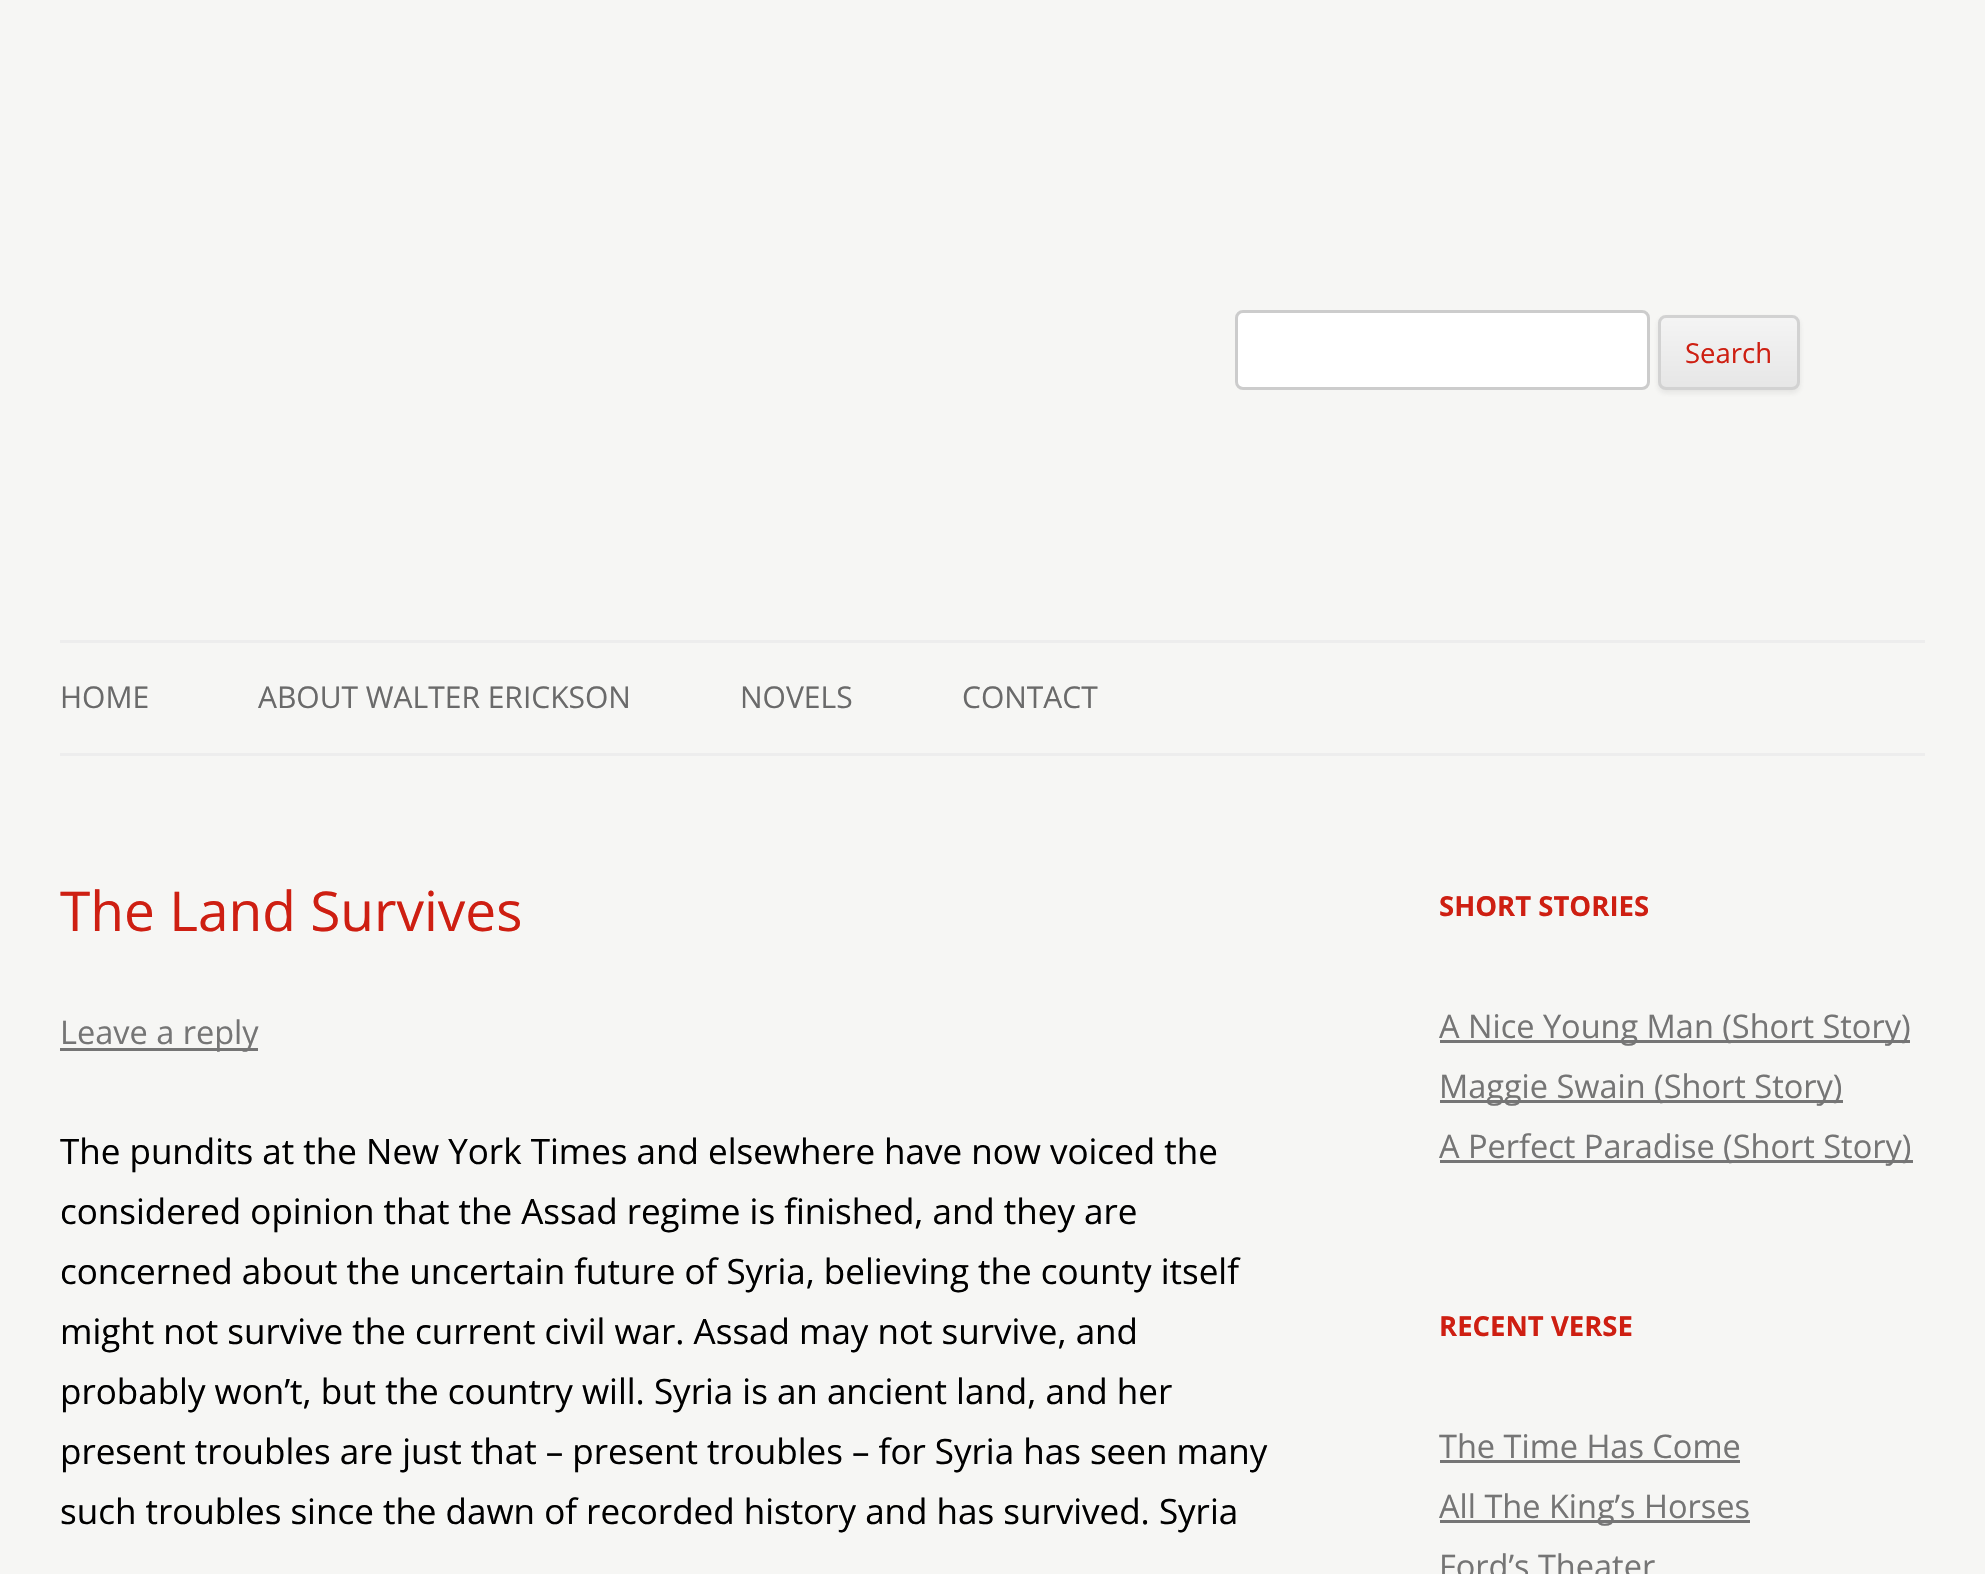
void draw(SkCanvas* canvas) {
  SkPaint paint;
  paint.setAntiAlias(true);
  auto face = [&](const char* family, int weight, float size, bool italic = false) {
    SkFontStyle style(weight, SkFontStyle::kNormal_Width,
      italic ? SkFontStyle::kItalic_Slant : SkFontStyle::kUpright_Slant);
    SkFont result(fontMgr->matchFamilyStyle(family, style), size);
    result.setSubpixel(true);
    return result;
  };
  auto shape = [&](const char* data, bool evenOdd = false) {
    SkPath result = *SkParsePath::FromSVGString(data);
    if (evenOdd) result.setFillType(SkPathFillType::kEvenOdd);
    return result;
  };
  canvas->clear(0xfff6f6f4);
  paint.setColor(0xffffffff);
  canvas->drawRoundRect(SkRect::MakeXYWH(1236.5f, 311.5f, 412, 77), 6.5f, 6.5f, paint);
  paint.setStroke(true);
  paint.setStrokeWidth(3);
  paint.setColor(0xffcccccc);
  canvas->drawRoundRect(SkRect::MakeXYWH(1236.5f, 311.5f, 412, 77), 6.5f, 6.5f, paint);
  paint.setStroke(false);
  paint.setColor(0x1a404040);
  paint.setMaskFilter(SkMaskFilter::MakeBlur(kNormal_SkBlurStyle, 2.5f));
  canvas->drawRoundRect(SkRect::MakeXYWH(1658, 318, 142, 75), 8, 8, paint);
  paint.setMaskFilter(nullptr);
  canvas->save();
  canvas->clipPath(shape("M1666 315H1792C1796.5 315 1800 318.5 1800 323V382C1800 386.5 1796.5 390 1792 390H1666C1661.5 390 1658 386.5 1658 382V323C1658 318.5 1661.5 315 1666 315Z"), true);
  {
    const SkColor colors[] = {0xfff4f4f4, 0xffe6e6e6};
    const float stops[] = {0, 1};
    const SkPoint ends[] = {{1729, 318}, {1729, 388}};
    paint.setShader(SkGradientShader::MakeLinear(ends, colors, stops, 2, SkTileMode::kClamp));
    paint.setAlpha(255);
  }
  canvas->drawRect(SkRect::MakeXYWH(1658, 318, 142, 70), paint);
  canvas->restore();
  paint.setStroke(true);
  paint.setShader(nullptr);
  paint.setColor(0xffd2d2d2);
  canvas->drawRoundRect(SkRect::MakeXYWH(1659.5f, 316.5f, 139, 72), 6.5f, 6.5f, paint);
  paint.setStroke(false);
  {
    const struct { float x, y, w, h; SkColor color; } items[] = {
      {60, 640, 1865, 3, 0xffededed},
      {60, 753, 1865, 3, 0xffededed},
      {60, 1048, 198, 3, 0xff757575},
      {1440, 1040, 470, 3, 0xff757575},
      {1440, 1100, 403, 3, 0xff757575},
      {1440, 1160, 473, 3, 0xff757575},
      {1440, 1460, 300, 3, 0xff757575},
      {1440, 1520, 310, 3, 0xff757575},
    };
    for (auto [x, y, w, h, color] : items) {
      paint.setColor(color);
      canvas->drawRect(SkRect::MakeXYWH(x, y, w, h), paint);
    }
  }
  auto f0 = face("Open Sans", 400, 27.5f);
  paint.setColor(0xffce1f12);
  canvas->drawString("Search", 1685, 363, f0, paint);
  auto f1 = face("Open Sans", 400, 30);
  paint.setColor(0xff6a6a6a);
  {
    const struct { const char* s; float x, y; } items[] = {
      {"HOME", 60, 708},
      {"ABOUT WALTER ERICKSON", 258, 708},
      {"NOVELS", 740, 708},
      {"CONTACT", 962, 708},
    };
    for (auto [s, x, y] : items) {
      canvas->drawString(s, x, y, f1, paint);
    }
  }
  auto f2 = face("Open Sans", 400, 55);
  paint.setColor(0xffce1f12);
  canvas->drawString("The Land Survives", 60, 931, f2, paint);
  auto f3 = face("Open Sans", 400, 32.5f);
  paint.setColor(0xff757575);
  canvas->drawString("Leave a reply", 60, 1044, f3, paint);
  auto f4 = face("Open Sans", 400, 35);
  paint.setColor(0xff000000);
  {
    const struct { const char* s; float x, y; } items[] = {
      {"The pundits at the New York Times and elsewhere have now voiced the", 60, 1164},
      {"considered opinion that the Assad regime is finished, and they are", 60, 1224},
      {"concerned about the uncertain future of Syria, believing the county itself", 60, 1284},
      {"might not survive the current civil war. Assad may not survive, and", 60, 1344},
      {"probably won’t, but the country will. Syria is an ancient land, and her", 60, 1404},
      {"present troubles are just that – present troubles – for Syria has seen many", 60, 1464},
      {"such troubles since the dawn of recorded history and has survived. Syria", 60, 1524},
    };
    for (auto [s, x, y] : items) {
      canvas->drawString(s, x, y, f4, paint);
    }
  }
  auto f5 = face("Open Sans", 700, 27.5f);
  paint.setColor(0xffce1f12);
  canvas->drawString("SHORT STORIES", 1439, 916, f5, paint);
  paint.setColor(0xff757575);
  {
    const struct { const char* s; float x, y; } items[] = {
      {"A Nice Young Man (Short Story)", 1439, 1038},
      {"Maggie Swain (Short Story)", 1439, 1098},
      {"A Perfect Paradise (Short Story)", 1439, 1158},
    };
    for (auto [s, x, y] : items) {
      canvas->drawString(s, x, y, f3, paint);
    }
  }
  paint.setColor(0xffce1f12);
  canvas->drawString("RECENT VERSE", 1439, 1336, f5, paint);
  paint.setColor(0xff757575);
  {
    const struct { const char* s; float x, y; } items[] = {
      {"The Time Has Come", 1439, 1458},
      {"All The King’s Horses", 1439, 1518},
      {"Ford’s Theater", 1439, 1578},
    };
    for (auto [s, x, y] : items) {
      canvas->drawString(s, x, y, f3, paint);
    }
  }
}
